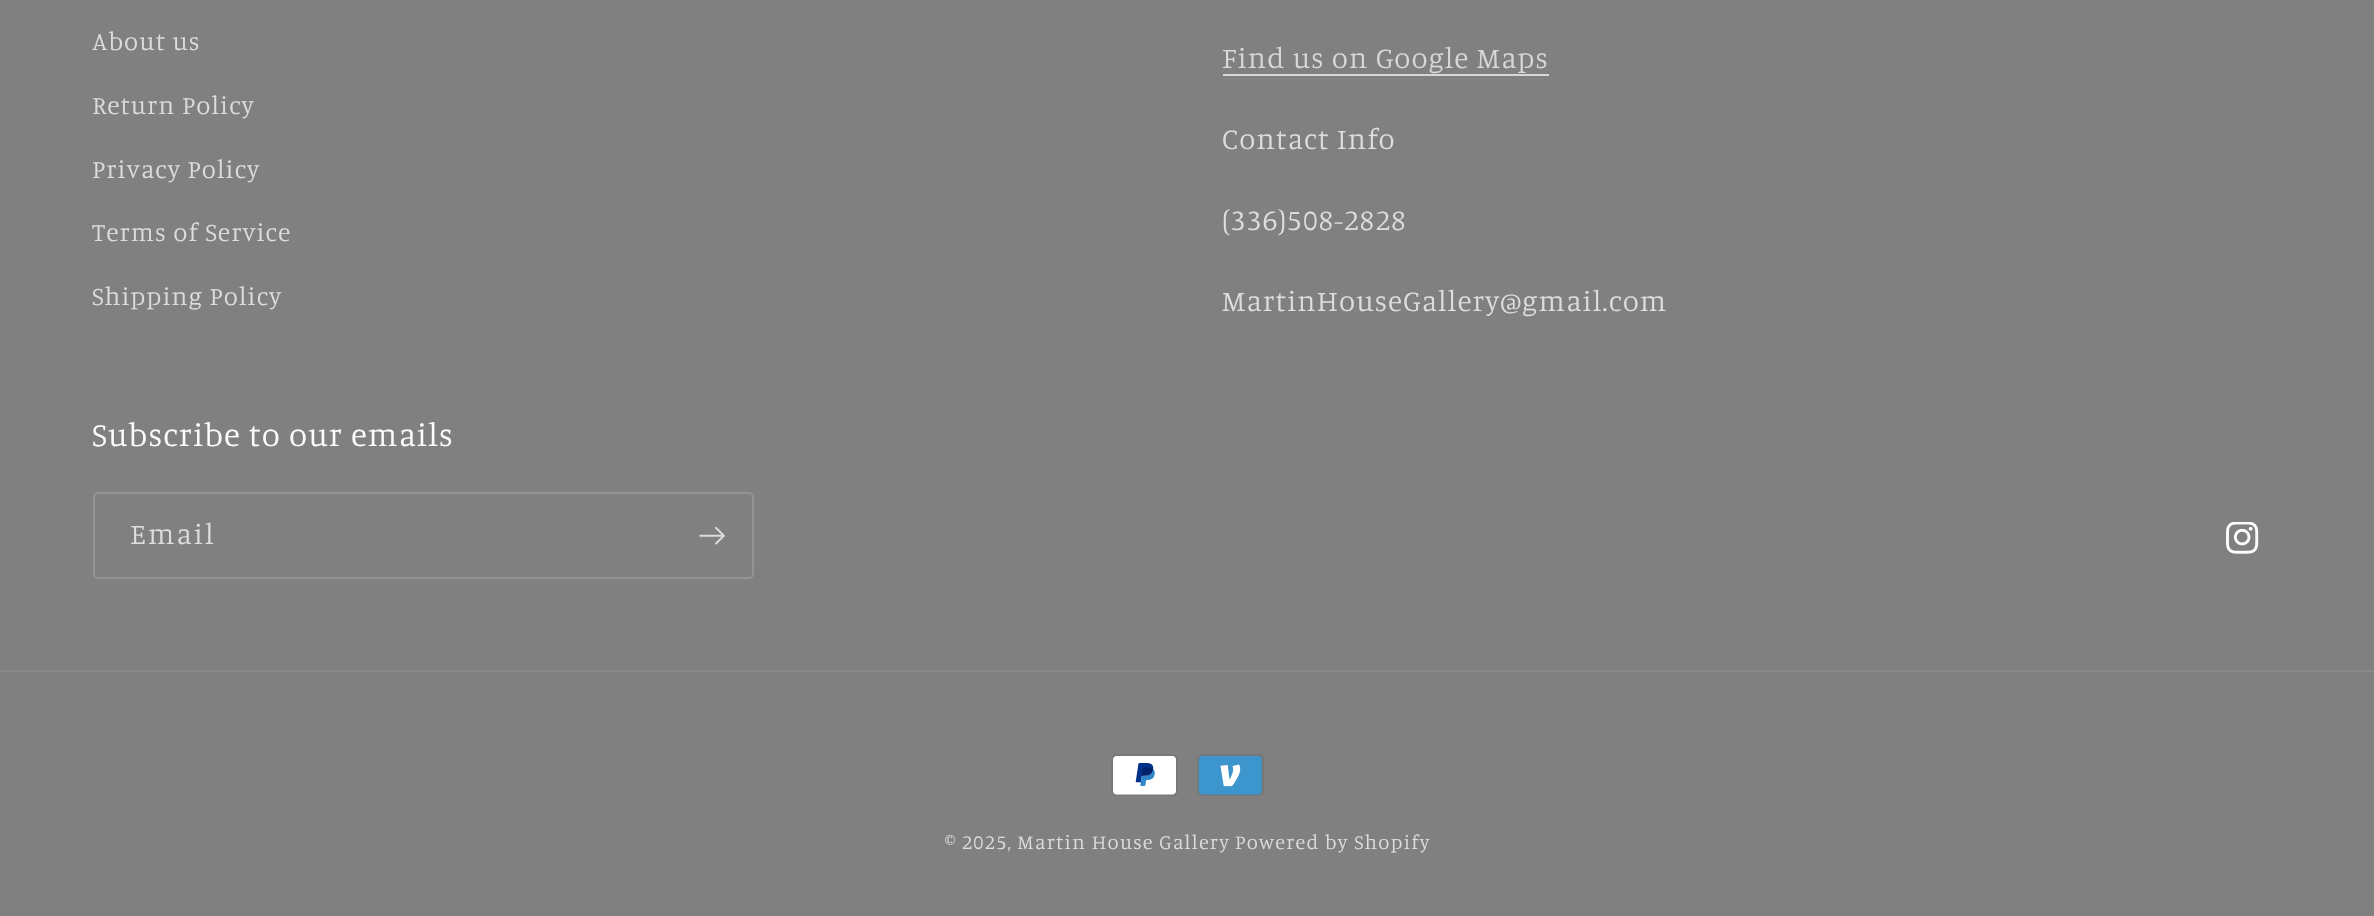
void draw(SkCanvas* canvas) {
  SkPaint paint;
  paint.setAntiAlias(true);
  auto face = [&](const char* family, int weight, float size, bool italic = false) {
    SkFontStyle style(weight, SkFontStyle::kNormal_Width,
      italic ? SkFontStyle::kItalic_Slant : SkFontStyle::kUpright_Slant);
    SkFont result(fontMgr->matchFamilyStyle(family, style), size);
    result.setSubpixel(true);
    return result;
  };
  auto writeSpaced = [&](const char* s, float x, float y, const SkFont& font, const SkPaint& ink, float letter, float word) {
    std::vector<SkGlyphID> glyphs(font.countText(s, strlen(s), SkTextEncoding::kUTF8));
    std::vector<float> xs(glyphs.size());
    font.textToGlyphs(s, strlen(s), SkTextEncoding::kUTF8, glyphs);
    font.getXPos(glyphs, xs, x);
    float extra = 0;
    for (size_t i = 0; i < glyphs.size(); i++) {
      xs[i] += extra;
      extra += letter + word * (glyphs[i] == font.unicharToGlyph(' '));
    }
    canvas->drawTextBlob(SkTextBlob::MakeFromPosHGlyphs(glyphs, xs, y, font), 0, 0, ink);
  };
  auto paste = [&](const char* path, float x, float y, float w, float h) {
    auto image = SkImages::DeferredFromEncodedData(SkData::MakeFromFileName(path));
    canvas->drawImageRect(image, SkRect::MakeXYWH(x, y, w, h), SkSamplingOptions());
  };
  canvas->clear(0xff808080);
  paint.setColor(0xffd7d7d7);
  canvas->drawRect(SkRect::MakeXYWH(1223, 74, 326, 2), paint);
  paint.setStroke(true);
  paint.setStrokeWidth(2);
  paint.setColor(0xff939393);
  canvas->drawRoundRect(SkRect::MakeXYWH(94, 493, 659, 85), 4, 4, paint);
  paste("img/1.png", 699, 526, 26, 19);
  paste("img/2.png", 2226, 522, 33, 32);
  paint.setStroke(false);
  paint.setColor(0xff8a8a8a);
  canvas->drawRect(SkRect::MakeXYWH(0, 670, 2374, 2), paint);
  paste("img/3.png", 1111, 754, 67, 42);
  paste("img/4.png", 1197, 754, 67, 42);
  auto f0 = face("Manuale", 300, 25.75f);
  paint.setColor(0xffdddddd);
  {
    const struct { const char* s; float x, y; } items[] = {
      {"About us", 92, 50},
      {"Return Policy", 92, 114},
      {"Privacy Policy", 92, 178},
      {"Terms of Service", 92, 241},
      {"Shipping Policy", 92, 305},
    };
    for (auto [s, x, y] : items) {
      writeSpaced(s, x, y, f0, paint, 1.1f, 0);
    }
  }
  auto f1 = face("Manuale", 300, 29.4f);
  paint.setColor(0xffd7d7d7);
  writeSpaced("Find us on Google Maps", 1222, 68, f1, paint, 1.1f, 0);
  paint.setColor(0xffdddddd);
  {
    const struct { const char* s; float x, y; } items[] = {
      {"Contact Info", 1222, 149},
      {"(336)508-2828", 1222, 230},
      {"MartinHouseGallery@gmail.com", 1222, 311},
    };
    for (auto [s, x, y] : items) {
      writeSpaced(s, x, y, f1, paint, 1.1f, 0);
    }
  }
  auto f2 = face("Manuale", 300, 33);
  paint.setColor(0xfffcfcfc);
  writeSpaced("Subscribe to our emails", 92, 446, f2, paint, 1.1f, 0);
  paint.setColor(0xffdddddd);
  writeSpaced("Email", 130, 544, f1, paint, 2, 0);
  auto f3 = face("Manuale", 300, 20.25f);
  writeSpaced("© 2025, Martin House Gallery", 945, 849, f3, paint, 1.3f, 0);
  writeSpaced("Powered by Shopify", 1235, 849, f3, paint, 1.3f, 0);
}
